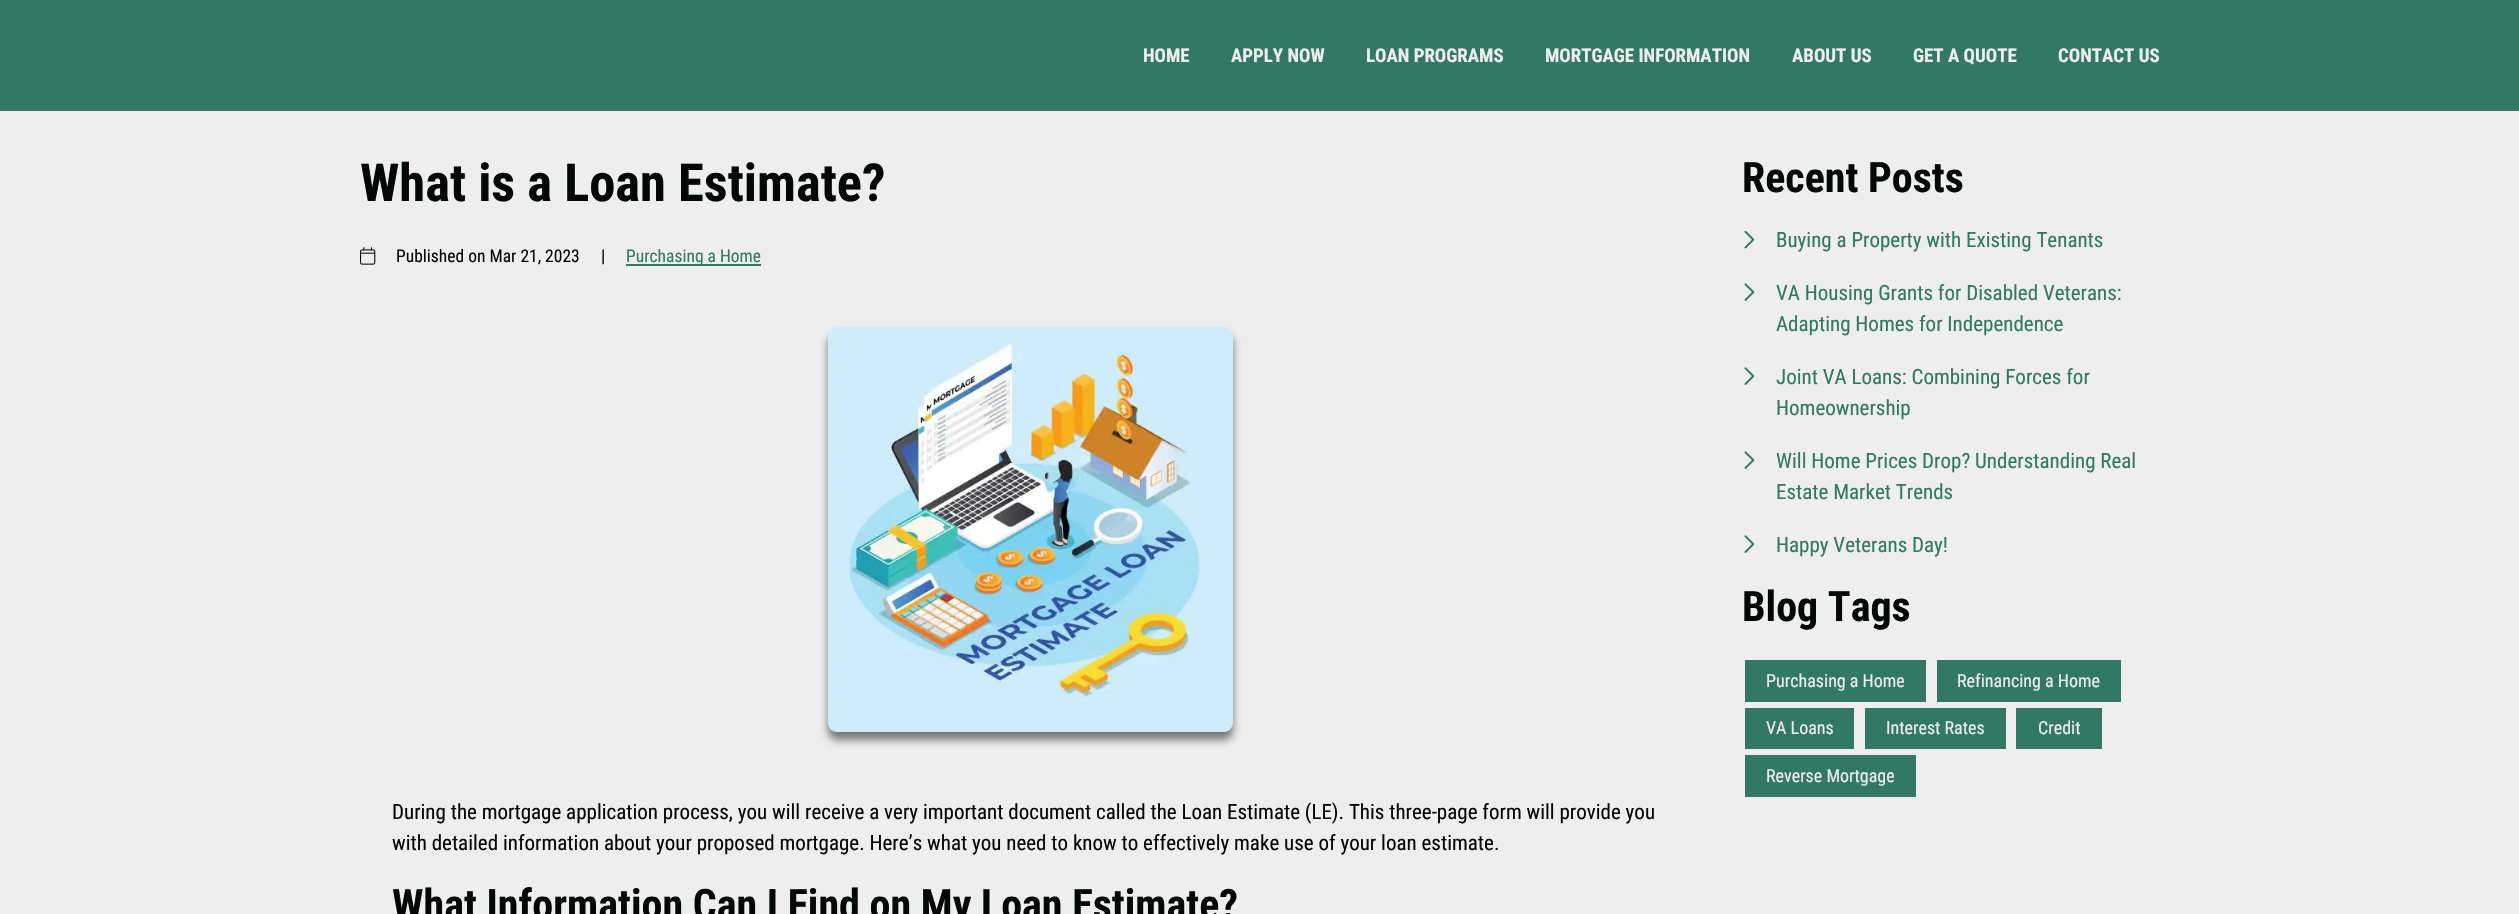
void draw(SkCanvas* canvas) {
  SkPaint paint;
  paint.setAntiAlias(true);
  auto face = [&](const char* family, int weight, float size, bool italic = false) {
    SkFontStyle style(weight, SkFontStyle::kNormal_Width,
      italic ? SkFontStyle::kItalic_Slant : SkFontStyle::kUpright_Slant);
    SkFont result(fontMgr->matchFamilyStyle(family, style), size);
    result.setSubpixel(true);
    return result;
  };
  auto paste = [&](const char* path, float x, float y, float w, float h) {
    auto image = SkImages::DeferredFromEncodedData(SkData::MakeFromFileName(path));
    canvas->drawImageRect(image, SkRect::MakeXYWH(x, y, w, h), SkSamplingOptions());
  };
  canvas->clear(0xffeeeeee);
  paint.setColor(0xff327864);
  canvas->drawRect(SkRect::MakeXYWH(0, 0, 2519, 111), paint);
  paste("img/1.png", 360, 247, 16, 18);
  canvas->drawRect(SkRect::MakeXYWH(626, 264, 135, 2), paint);
  paint.setColor(0x80000000);
  paint.setMaskFilter(SkMaskFilter::MakeBlur(kNormal_SkBlurStyle, 4));
  canvas->drawRoundRect(SkRect::MakeXYWH(828, 335, 405, 405), 9, 9, paint);
  paint.setMaskFilter(nullptr);
  paste("img/2.png", 828, 327, 405, 405);
  paste("img/3.png", 1744, 230, 11, 19);
  paste("img/4.png", 1744, 283, 11, 18);
  paste("img/4.png", 1744, 367, 11, 18);
  paste("img/4.png", 1744, 451, 11, 18);
  paste("img/4.png", 1744, 535, 11, 18);
  {
    const struct { float x, y, w, h; SkColor color; } items[] = {
      {1745, 660, 181, 42, 0xff327864},
      {1937, 660, 184, 42, 0xff327864},
      {1745, 708, 109, 41, 0xff327864},
      {1865, 708, 141, 41, 0xff327864},
      {2016, 708, 86, 41, 0xff327864},
      {1745, 755, 171, 42, 0xff327864},
    };
    for (auto [x, y, w, h, color] : items) {
      paint.setColor(color);
      canvas->drawRect(SkRect::MakeXYWH(x, y, w, h), paint);
    }
  }
  auto f0 = face("Roboto Condensed", 700, 18.9f);
  paint.setColor(0xffeeeeee);
  {
    const struct { const char* s; float x, y; } items[] = {
      {"HOME", 1143, 62},
      {"APPLY NOW", 1231, 62},
      {"LOAN PROGRAMS", 1366, 62},
      {"MORTGAGE INFORMATION", 1545, 62},
      {"ABOUT US", 1792, 62},
      {"GET A QUOTE", 1913, 62},
      {"CONTACT US", 2058, 62},
    };
    for (auto [s, x, y] : items) {
      canvas->drawString(s, x, y, f0, paint);
    }
  }
  auto f1 = face("Roboto Condensed", 700, 52.5f);
  paint.setColor(0xff040708);
  canvas->drawString("What is a Loan Estimate?", 360, 201, f1, paint);
  auto f2 = face("Roboto Condensed", 400, 17.5f);
  canvas->drawString("Published on Mar 21, 2023", 396, 262, f2, paint);
  canvas->drawString("|", 601, 262, f2, paint);
  paint.setColor(0xff327864);
  canvas->drawString("Purchasing a Home", 626, 262, f2, paint);
  auto f3 = face("Roboto Condensed", 400, 21);
  paint.setColor(0xff040708);
  canvas->drawString("During the mortgage application process, you will receive a very important document called the Loan Estimate (LE). This three-page form will provide you", 392, 819, f3, paint);
  canvas->drawString("with detailed information about your proposed mortgage. Here’s what you need to know to effectively make use of your loan estimate.", 392, 850, f3, paint);
  auto f4 = face("Roboto Condensed", 700, 42);
  canvas->drawString("What Information Can I Find on My Loan Estimate?", 392, 919, f4, paint);
  canvas->drawString("Recent Posts", 1742, 192, f4, paint);
  paint.setColor(0xff327864);
  {
    const struct { const char* s; float x, y; } items[] = {
      {"Buying a Property with Existing Tenants", 1776, 247},
      {"VA Housing Grants for Disabled Veterans:", 1776, 300},
      {"Adapting Homes for Independence", 1776, 331},
      {"Joint VA Loans: Combining Forces for", 1776, 384},
      {"Homeownership", 1776, 415},
      {"Will Home Prices Drop? Understanding Real", 1776, 468},
      {"Estate Market Trends", 1776, 499},
      {"Happy Veterans Day!", 1776, 552},
    };
    for (auto [s, x, y] : items) {
      canvas->drawString(s, x, y, f3, paint);
    }
  }
  paint.setColor(0xff040708);
  canvas->drawString("Blog Tags", 1742, 621, f4, paint);
  auto f5 = face("Roboto Condensed", 400, 18);
  paint.setColor(0xffeeeeee);
  {
    const struct { const char* s; float x, y; } items[] = {
      {"Purchasing a Home", 1766, 687},
      {"Refinancing a Home", 1957, 687},
      {"VA Loans", 1766, 734},
      {"Interest Rates", 1886, 734},
      {"Credit", 2038, 734},
      {"Reverse Mortgage", 1766, 782},
    };
    for (auto [s, x, y] : items) {
      canvas->drawString(s, x, y, f5, paint);
    }
  }
}
